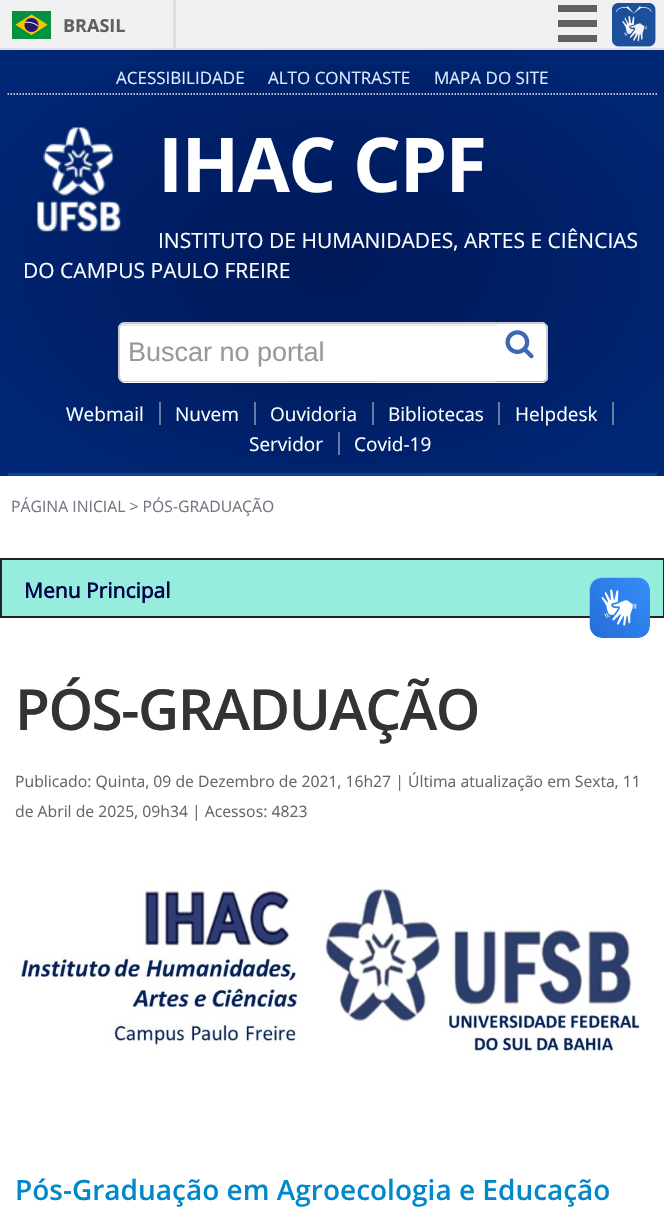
void draw(SkCanvas* canvas) {
  SkPaint paint;
  paint.setAntiAlias(true);
  auto face = [&](const char* family, int weight, float size, bool italic = false) {
    SkFontStyle style(weight, SkFontStyle::kNormal_Width,
      italic ? SkFontStyle::kItalic_Slant : SkFontStyle::kUpright_Slant);
    SkFont result(fontMgr->matchFamilyStyle(family, style), size);
    result.setSubpixel(true);
    return result;
  };
  auto writeSpaced = [&](const char* s, float x, float y, const SkFont& font, const SkPaint& ink, float letter, float word) {
    std::vector<SkGlyphID> glyphs(font.countText(s, strlen(s), SkTextEncoding::kUTF8));
    std::vector<float> xs(glyphs.size());
    font.textToGlyphs(s, strlen(s), SkTextEncoding::kUTF8, glyphs);
    font.getXPos(glyphs, xs, x);
    float extra = 0;
    for (size_t i = 0; i < glyphs.size(); i++) {
      xs[i] += extra;
      extra += letter + word * (glyphs[i] == font.unicharToGlyph(' '));
    }
    canvas->drawTextBlob(SkTextBlob::MakeFromPosHGlyphs(glyphs, xs, y, font), 0, 0, ink);
  };
  auto paste = [&](const char* path, float x, float y, float w, float h) {
    auto image = SkImages::DeferredFromEncodedData(SkData::MakeFromFileName(path));
    canvas->drawImageRect(image, SkRect::MakeXYWH(x, y, w, h), SkSamplingOptions());
  };
  auto shape = [&](const char* data, bool evenOdd = false) {
    SkPath result = *SkParsePath::FromSVGString(data);
    if (evenOdd) result.setFillType(SkPathFillType::kEvenOdd);
    return result;
  };
  canvas->clear(0xfff1f1f1);
  paint.setColor(0xffdfdfdf);
  canvas->drawRect(SkRect::MakeXYWH(0, 48, 664, 2), paint);
  canvas->drawRect(SkRect::MakeXYWH(173, 0, 3, 48), paint);
  paste("img/1.png", 12, 11, 39, 28);
  {
    const struct { float x, y, w, h; SkColor color; } items[] = {
      {558, 5, 39, 7, 0xff606060},
      {558, 20, 39, 7, 0xff606060},
      {558, 35, 39, 7, 0xff606060},
    };
    for (auto [x, y, w, h, color] : items) {
      paint.setColor(color);
      canvas->drawRect(SkRect::MakeXYWH(x, y, w, h), paint);
    }
  }
  paste("img/2.png", 612, 3, 44, 44);
  {
    const SkColor colors[] = {0xff001858, 0xff002878};
    const float stops[] = {0.01f, 1};
    SkMatrix m = SkMatrix::Translate(332, 263).preScale(470, 301);
    paint.setShader(SkGradientShader::MakeRadial({0, 0}, 1, colors, stops, 2, SkTileMode::kClamp, 0, &m));
    paint.setAlpha(255);
  }
  canvas->drawRect(SkRect::MakeXYWH(0, 50, 664, 426), paint);
  paint.setStroke(true);
  paint.setStrokeWidth(1.5f);
  paint.setShader(nullptr);
  paint.setColor(0xfff6f7f8);
  paint.setPathEffect(SkDashPathEffect::Make({{1.5f, 1.5f}}, 0));
  canvas->drawPath(shape("M7.5 94H657"), paint);
  paint.setPathEffect(nullptr);
  paste("img/3.png", 37, 127, 84, 105);
  paint.setStroke(false);
  paint.setColor(0xffffffff);
  canvas->drawPath(shape("M125 323H498V383H125C121.5 383 119 380.5 119 377V329C119 325.5 121.5 323 125 323Z"), paint);
  paint.setColor(0xffececec);
  canvas->drawPath(shape("M124 326H498V324H125C122 324 120 327 120 330C120 328 122 326 124 326Z"), paint);
  paint.setColor(0xffcccccc);
  canvas->drawPath(shape("M124 322H498V382H124C121 382 118 380 118 376V328C118 325 121 322 124 322ZM124 324H498V381H124C122 381 120 379 120 376V328C120 326 122 324 124 324Z", true), paint);
  paint.setColor(0xffffffff);
  canvas->drawPath(shape("M497 323H542C545.5 323 548 325.5 548 329V377C548 380.5 545.5 383 542 383H497Z"), paint);
  paint.setColor(0xffcccccc);
  canvas->drawPath(shape("M496 322H544L546 324L545 325C544 324 543 324 542 324H496Z"), paint);
  canvas->drawPath(shape("M545 380C547 377 546 370 546 368V328L545 325L546 324L548 326V379L546 381Z"), paint);
  paint.setColor(0xffb3b3b3);
  canvas->drawPath(shape("M496 381H543L545 380L546 381C545 382 543 382 542 382H496Z"), paint);
  paste("img/4.png", 505, 330, 29, 29);
  {
    const struct { float x, y, w, h; SkColor color; } items[] = {
      {8, 473, 649, 3, 0xff0f4098},
      {159, 402, 2, 23, 0xff687ca1},
      {254, 402, 2, 23, 0xff687ca1},
      {372, 402, 2, 23, 0xff687ca1},
      {498, 402, 2, 23, 0xff687ca1},
      {612, 402, 2, 23, 0xff687ca1},
      {338, 432, 2, 23, 0xff687ca1},
      {0, 476, 664, 737, 0xffffffff},
    };
    for (auto [x, y, w, h, color] : items) {
      paint.setColor(color);
      canvas->drawRect(SkRect::MakeXYWH(x, y, w, h), paint);
    }
  }
  paint.setColor(0xff96edde);
  canvas->drawRect(SkRect::MakeXYWH(1, 559, 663, 58), paint);
  paint.setStroke(true);
  paint.setStrokeWidth(2);
  paint.setColor(0xff222222);
  canvas->drawRect(SkRect::MakeXYWH(1, 559, 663, 58), paint);
  paste("img/5.png", 15, 886, 625, 166);
  paste("img/6.png", 589, 577, 61, 61);
  paste("img/7.png", 590, 578, 60, 60);
  auto f0 = face("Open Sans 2", 700, 18);
  paint.setStroke(false);
  paint.setColor(0xff606060);
  canvas->drawString("BRASIL", 63, 32, f0, paint);
  auto f1 = face("Open Sans", 400, 17);
  paint.setColor(0xffdcecff);
  {
    const struct { const char* s; float x, y; } items[] = {
      {"ACESSIBILIDADE", 116, 84},
      {"ALTO CONTRASTE", 268, 84},
      {"MAPA DO SITE", 434, 84},
    };
    for (auto [s, x, y] : items) {
      canvas->drawString(s, x, y, f1, paint);
    }
  }
  auto f2 = face("Open Sans", 700, 75.5f);
  paint.setColor(0xffffffff);
  writeSpaced("IHAC CPF", 158, 192, f2, paint, -1.5f, 0);
  auto f3 = face("Open Sans", 400, 21);
  canvas->drawString("INSTITUTO DE HUMANIDADES, ARTES E CIÊNCIAS", 158, 248, f3, paint);
  canvas->drawString("DO CAMPUS PAULO FREIRE", 23, 278, f3, paint);
  auto f4 = face("Liberation Sans", 400, 27);
  paint.setColor(0xff999999);
  canvas->drawString("Buscar no portal", 128, 361, f4, paint);
  auto f5 = face("Open Sans", 400, 19);
  paint.setColor(0xffffffff);
  {
    const struct { const char* s; float x, y; } items[] = {
      {"Webmail", 66, 421},
      {"Nuvem", 175, 421},
      {"Ouvidoria", 270, 421},
      {"Bibliotecas", 388, 421},
      {"Helpdesk", 515, 421},
      {"Servidor", 249, 451},
      {"Covid-19", 354, 451},
    };
    for (auto [s, x, y] : items) {
      canvas->drawString(s, x, y, f5, paint);
    }
  }
  auto f6 = face("Open Sans", 400, 15.75f);
  paint.setColor(0xff717782);
  canvas->drawString("PÁGINA INICIAL > PÓS-GRADUAÇÃO", 11, 512, f6, paint);
  auto f7 = face("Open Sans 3", 700, 21);
  paint.setColor(0xff000044);
  canvas->drawString("Menu Principal", 24, 598, f7, paint);
  auto f8 = face("Open Sans", 600, 56.75f);
  paint.setColor(0xff333333);
  writeSpaced("PÓS-GRADUAÇÃO", 15, 730, f8, paint, -1.5f, 0);
  paint.setColor(0xff666666);
  canvas->drawString("Publicado: Quinta, 09 de Dezembro de 2021, 16h27 | Última atualização em Sexta, 11", 15, 787, f6, paint);
  canvas->drawString("de Abril de 2025, 09h34 | Acessos: 4823", 15, 817, f6, paint);
  auto f9 = face("Open Sans", 600, 28);
  paint.setColor(0xff0088cc);
  canvas->drawString("Pós-Graduação em Agroecologia e Educação", 15, 1200, f9, paint);
}
